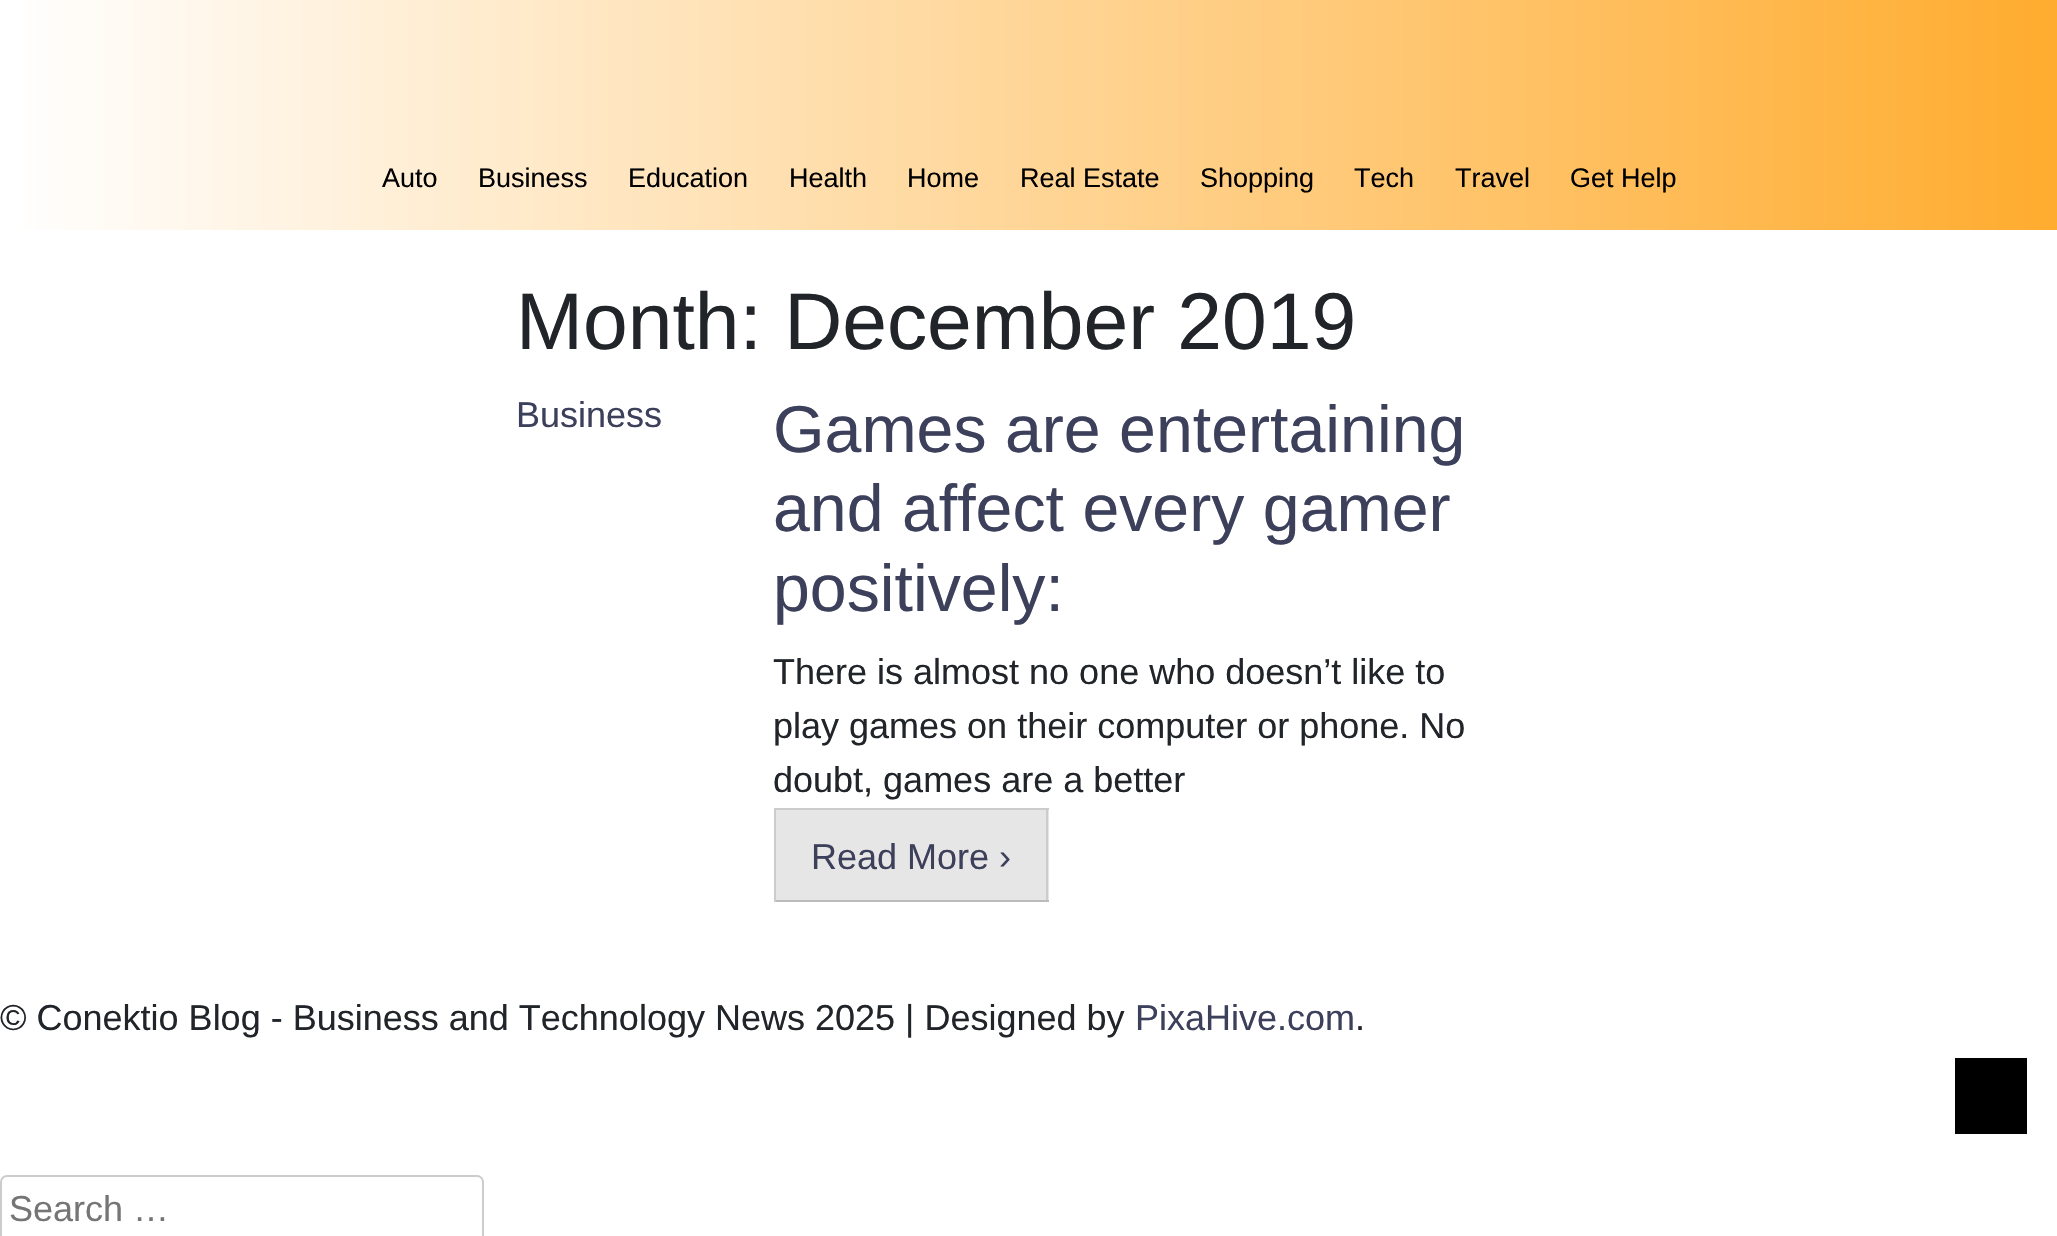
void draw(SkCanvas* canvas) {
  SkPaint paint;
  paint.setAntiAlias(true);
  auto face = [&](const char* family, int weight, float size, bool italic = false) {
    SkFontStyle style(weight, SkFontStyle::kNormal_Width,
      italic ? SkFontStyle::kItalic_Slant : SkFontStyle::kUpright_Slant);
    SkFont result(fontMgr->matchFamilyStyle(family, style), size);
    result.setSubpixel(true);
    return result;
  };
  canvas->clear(0xffffffff);
  {
    const SkColor colors[] = {0xffffffff, 0xffffac2f};
    const float stops[] = {0, 1};
    const SkPoint ends[] = {{0, 115}, {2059, 115}};
    paint.setShader(SkGradientShader::MakeLinear(ends, colors, stops, 2, SkTileMode::kClamp));
    paint.setAlpha(255);
  }
  canvas->drawRect(SkRect::MakeXYWH(25, 0, 2032, 230), paint);
  paint.setShader(nullptr);
  {
    const struct { float x, y, w, h; SkColor color; } items[] = {
      {776, 810, 273, 90, 0xffe6e6e6},
      {774, 808, 275, 2, 0xffcccccc},
      {1046, 808, 2, 94, 0xffcccccc},
      {774, 900, 275, 2, 0xffbbbbbb},
      {774, 808, 2, 94, 0xffcccccc},
      {1955, 1058, 72, 76, 0xff000000},
    };
    for (auto [x, y, w, h, color] : items) {
      paint.setColor(color);
      canvas->drawRect(SkRect::MakeXYWH(x, y, w, h), paint);
    }
  }
  paint.setStroke(true);
  paint.setStrokeWidth(2);
  paint.setColor(0xffcccccc);
  canvas->drawRoundRect(SkRect::MakeXYWH(1, 1176, 482, 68), 6, 6, paint);
  auto f0 = face("Liberation Sans", 400, 27);
  paint.setStroke(false);
  paint.setColor(0xff000000);
  {
    const struct { const char* s; float x, y; } items[] = {
      {"Auto", 382, 187},
      {"Business", 478, 187},
      {"Education", 628, 187},
      {"Health", 789, 187},
      {"Home", 907, 187},
      {"Real Estate", 1020, 187},
      {"Shopping", 1200, 187},
      {"Tech", 1354, 187},
      {"Travel", 1455, 187},
      {"Get Help", 1570, 187},
    };
    for (auto [s, x, y] : items) {
      canvas->drawString(s, x, y, f0, paint);
    }
  }
  auto f1 = face("Liberation Sans", 400, 80.4f);
  paint.setColor(0xff212529);
  canvas->drawString("Month: December 2019", 516, 349, f1, paint);
  auto f2 = face("Liberation Sans", 400, 36);
  paint.setColor(0xff3d405b);
  canvas->drawString("Business", 516, 427, f2, paint);
  auto f3 = face("Liberation Sans", 400, 66.25f);
  {
    const struct { const char* s; float x, y; } items[] = {
      {"Games are entertaining", 773, 452},
      {"and affect every gamer", 773, 531},
      {"positively:", 773, 611},
    };
    for (auto [s, x, y] : items) {
      canvas->drawString(s, x, y, f3, paint);
    }
  }
  paint.setColor(0xff212529);
  {
    const struct { const char* s; float x, y; } items[] = {
      {"There is almost no one who doesn’t like to", 773, 684},
      {"play games on their computer or phone. No", 773, 738},
      {"doubt, games are a better", 773, 792},
    };
    for (auto [s, x, y] : items) {
      canvas->drawString(s, x, y, f2, paint);
    }
  }
  paint.setColor(0xff3d405b);
  canvas->drawString("Read More ›", 811, 869, f2, paint);
  paint.setColor(0xff212529);
  canvas->drawString("© Conektio Blog - Business and Technology News 2025 | Designed by", 0, 1030, f2, paint);
  paint.setColor(0xff3d405b);
  canvas->drawString("PixaHive.com", 1135, 1030, f2, paint);
  paint.setColor(0xff212529);
  canvas->drawString(".", 1355, 1030, f2, paint);
  paint.setColor(0xff757575);
  canvas->drawString("Search …", 9, 1221, f2, paint);
}
